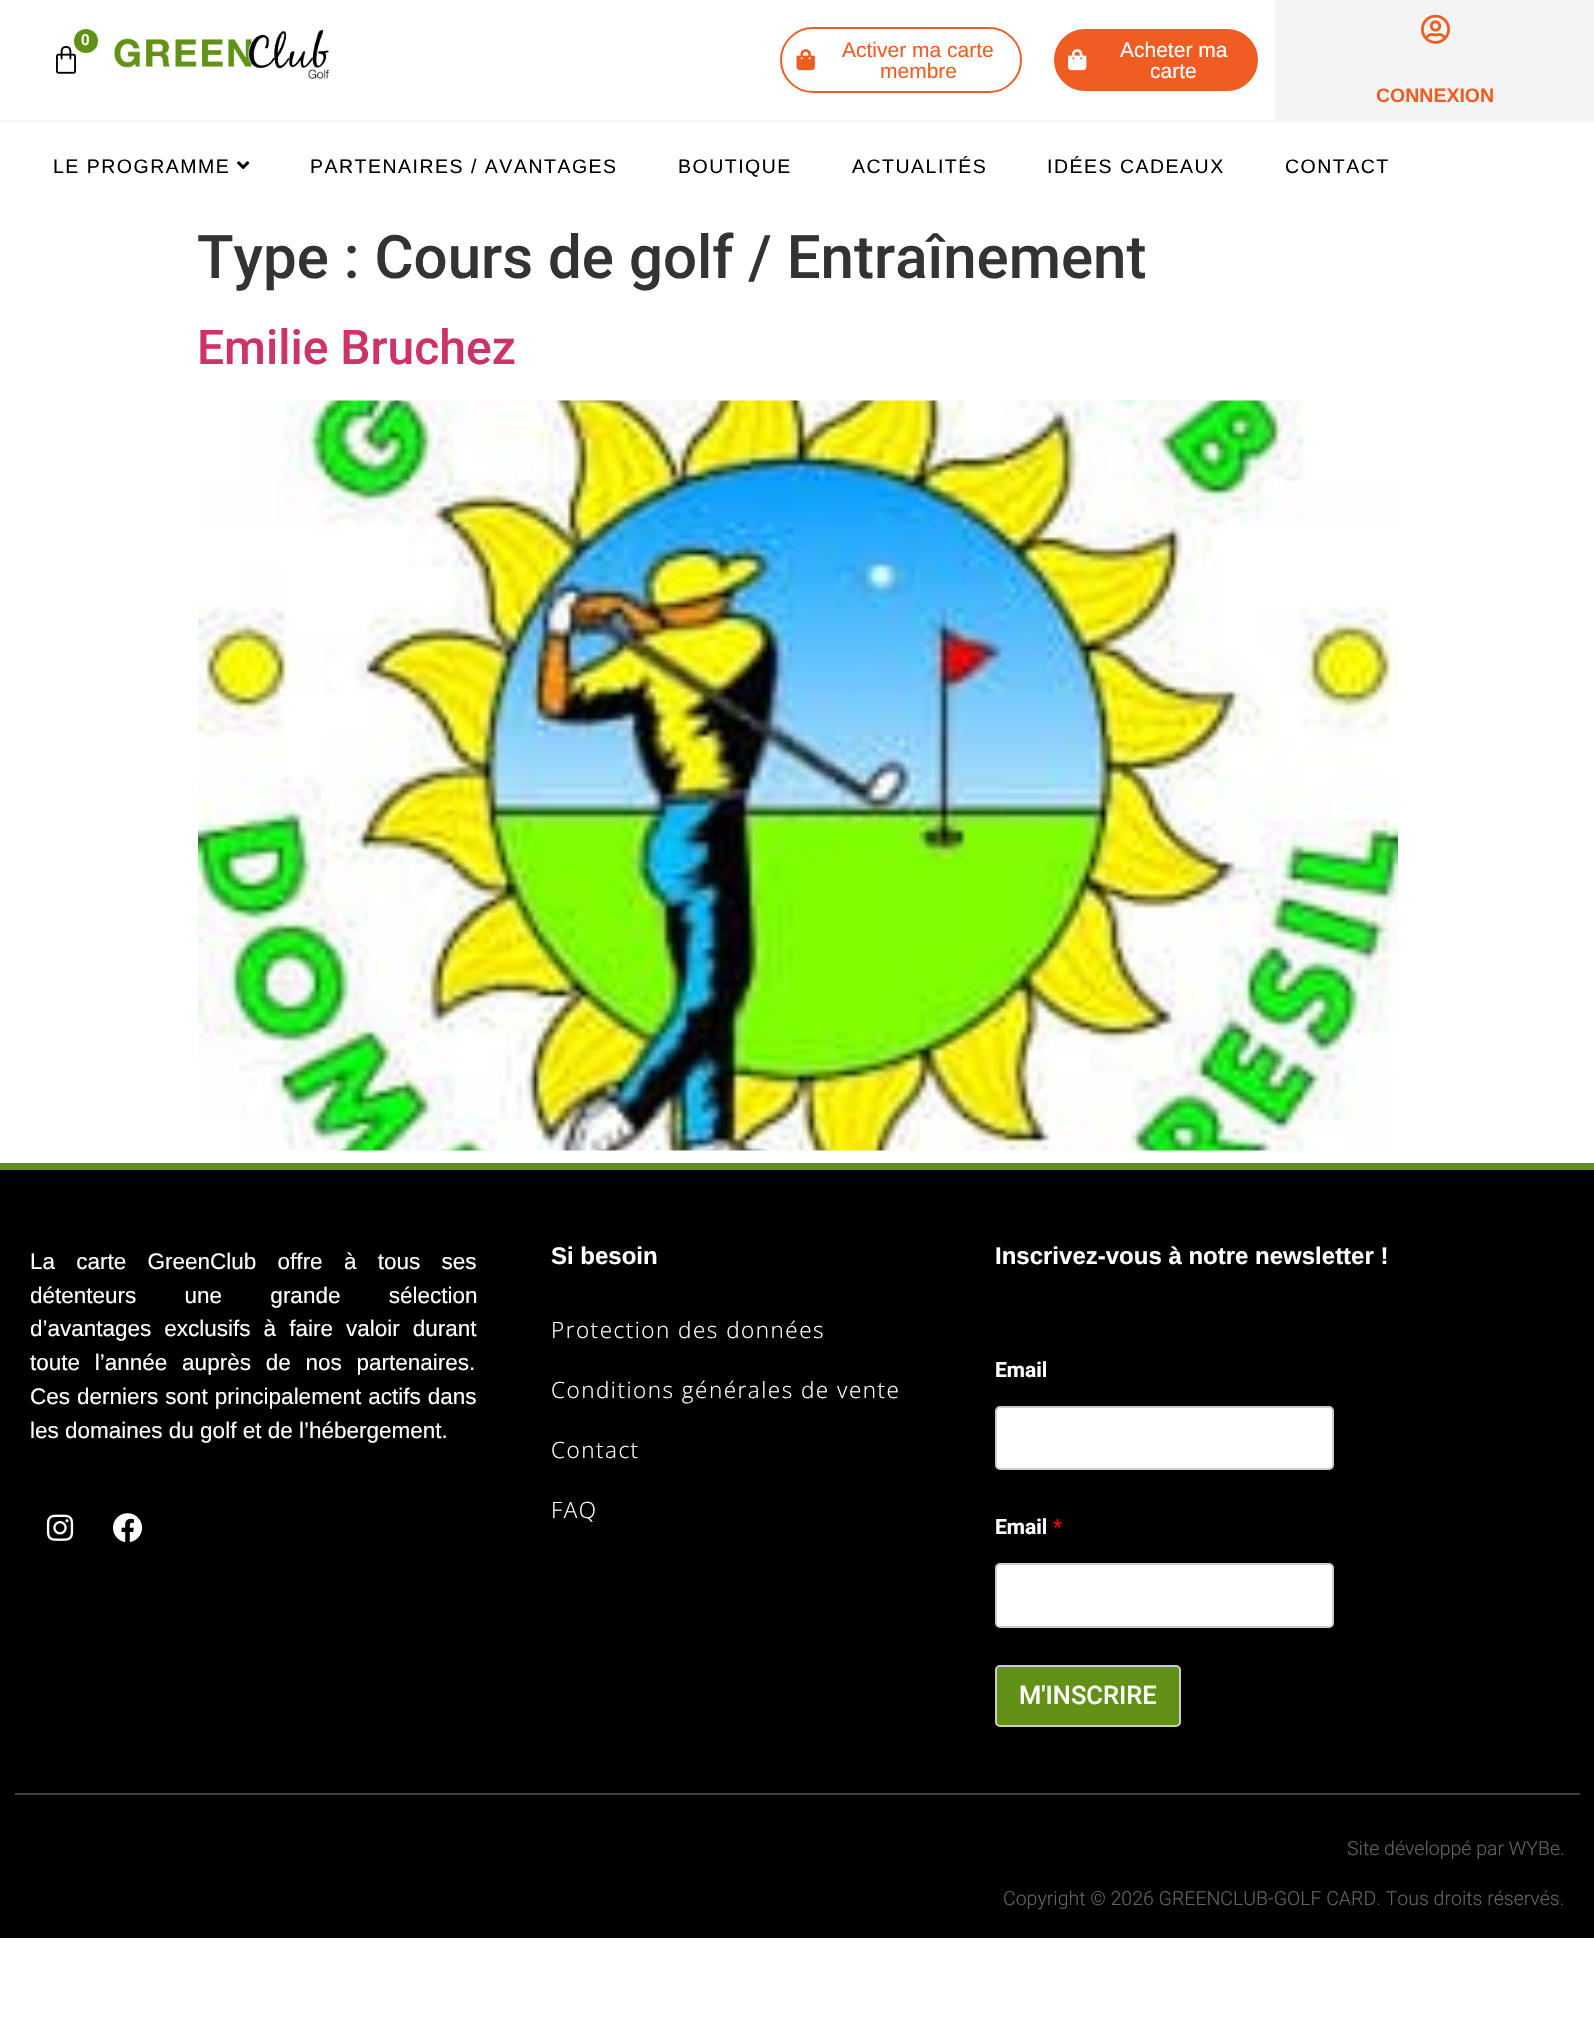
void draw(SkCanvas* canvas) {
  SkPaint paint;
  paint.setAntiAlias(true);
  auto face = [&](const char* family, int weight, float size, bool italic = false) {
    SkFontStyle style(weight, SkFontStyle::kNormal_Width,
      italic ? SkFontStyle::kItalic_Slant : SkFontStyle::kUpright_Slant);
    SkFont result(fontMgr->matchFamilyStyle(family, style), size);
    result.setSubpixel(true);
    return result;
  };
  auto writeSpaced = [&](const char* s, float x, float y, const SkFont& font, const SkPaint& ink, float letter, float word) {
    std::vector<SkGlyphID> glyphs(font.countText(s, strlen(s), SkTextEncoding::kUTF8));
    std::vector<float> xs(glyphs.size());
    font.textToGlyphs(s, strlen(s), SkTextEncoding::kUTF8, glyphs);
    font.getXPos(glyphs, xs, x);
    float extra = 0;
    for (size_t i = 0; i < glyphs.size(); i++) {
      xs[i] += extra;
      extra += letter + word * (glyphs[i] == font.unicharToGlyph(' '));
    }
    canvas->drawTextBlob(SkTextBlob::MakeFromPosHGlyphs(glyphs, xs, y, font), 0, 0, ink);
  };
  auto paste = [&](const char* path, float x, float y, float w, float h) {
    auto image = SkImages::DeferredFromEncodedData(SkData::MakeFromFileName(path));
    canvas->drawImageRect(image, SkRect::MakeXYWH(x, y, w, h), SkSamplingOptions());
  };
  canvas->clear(0xffffffff);
  paint.setColor(0xfff4f4f4);
  canvas->drawRect(SkRect::MakeXYWH(0, 120, 1594, 2), paint);
  paste("img/1.png", 56, 46, 20, 28);
  paint.setColor(0xff629117);
  canvas->drawCircle(86, 41, 12, paint);
  paste("img/2.png", 114, 30, 216, 49);
  paint.setStroke(true);
  paint.setStrokeWidth(2);
  paint.setColor(0xfff05d23);
  canvas->drawRoundRect(SkRect::MakeXYWH(781, 28, 240, 64), 32, 32, paint);
  paste("img/3.png", 796, 49, 19, 22);
  paint.setStroke(false);
  canvas->drawRoundRect(SkRect::MakeXYWH(1053, 28, 206, 64), 32, 32, paint);
  paint.setStroke(true);
  paint.setColor(0xffffffff);
  canvas->drawRoundRect(SkRect::MakeXYWH(1053, 28, 206, 64), 32, 32, paint);
  paste("img/4.png", 1068, 49, 19, 22);
  paint.setStroke(false);
  paint.setColor(0xfff4f4f4);
  canvas->drawRect(SkRect::MakeXYWH(1275, 0, 319, 120), paint);
  paste("img/5.png", 1421, 14, 29, 30);
  paste("img/6.png", 237, 161, 13, 9);
  paste("img/7.png", 198, 400, 1200, 751);
  paint.setColor(0xff000000);
  canvas->drawRect(SkRect::MakeXYWH(0, 1170, 1594, 768), paint);
  paint.setColor(0xff629117);
  canvas->drawRect(SkRect::MakeXYWH(0, 1163, 1594, 7), paint);
  paste("img/8.png", 46, 1514, 28, 27);
  paste("img/9.png", 113, 1513, 29, 29);
  paint.setColor(0xffffffff);
  canvas->drawRoundRect(SkRect::MakeXYWH(996, 1407, 337, 62), 4, 4, paint);
  paint.setStroke(true);
  paint.setColor(0xffcccccc);
  canvas->drawRoundRect(SkRect::MakeXYWH(996, 1407, 337, 62), 4, 4, paint);
  paint.setStroke(false);
  paint.setColor(0xffffffff);
  canvas->drawRoundRect(SkRect::MakeXYWH(996, 1564, 337, 63), 4, 4, paint);
  paint.setStroke(true);
  paint.setColor(0xffcccccc);
  canvas->drawRoundRect(SkRect::MakeXYWH(996, 1564, 337, 63), 4, 4, paint);
  paint.setStroke(false);
  paint.setColor(0xff629117);
  canvas->drawRoundRect(SkRect::MakeXYWH(996, 1666, 184, 60), 4, 4, paint);
  paint.setStroke(true);
  paint.setColor(0xffcccccc);
  canvas->drawRoundRect(SkRect::MakeXYWH(996, 1666, 184, 60), 4, 4, paint);
  paint.setStroke(false);
  paint.setColor(0xff404040);
  canvas->drawRect(SkRect::MakeXYWH(15, 1793, 1565, 2), paint);
  auto f0 = face("Roboto", 600, 15);
  paint.setColor(0xffffffff);
  canvas->drawString("0", 81, 45, f0, paint);
  auto f1 = face("Liberation Sans", 400, 21);
  paint.setColor(0xfff05d23);
  canvas->drawString("Activer ma carte", 842, 57, f1, paint);
  canvas->drawString("membre", 880, 78, f1, paint);
  paint.setColor(0xffffffff);
  canvas->drawString("Acheter ma", 1120, 57, f1, paint);
  canvas->drawString("carte", 1150, 78, f1, paint);
  auto f2 = face("Liberation Sans", 700, 19.5f);
  paint.setColor(0xfff05d23);
  canvas->drawString("CONNEXION", 1376, 102, f2, paint);
  auto f3 = face("Liberation Sans", 400, 19.5f);
  paint.setColor(0xff000000);
  {
    const struct { const char* s; float x, y; } items[] = {
      {"LE PROGRAMME", 53, 173},
      {"PARTENAIRES / AVANTAGES", 310, 173},
      {"BOUTIQUE", 678, 173},
      {"ACTUALITÉS", 852, 173},
      {"IDÉES CADEAUX", 1047, 173},
      {"CONTACT", 1285, 173},
    };
    for (auto [s, x, y] : items) {
      writeSpaced(s, x, y, f3, paint, 1.5f, 0);
    }
  }
  auto f4 = face("Roboto", 500, 60);
  paint.setColor(0xff333333);
  canvas->drawString("Type : Cours de golf / Entraînement", 197, 278, f4, paint);
  auto f5 = face("Roboto", 500, 48);
  paint.setColor(0xffcc3366);
  canvas->drawString("Emilie Bruchez", 197, 364, f5, paint);
  auto f6 = face("Liberation Sans", 400, 22.5f);
  paint.setColor(0xffffffff);
  writeSpaced("La carte GreenClub offre à tous ses", 30, 1269, f6, paint, 0, 15);
  writeSpaced("détenteurs une grande sélection", 30, 1303, f6, paint, 0, 42);
  writeSpaced("d’avantages exclusifs à faire valoir durant", 30, 1336, f6, paint, 0, 6.75f);
  writeSpaced("toute l’année auprès de nos partenaires.", 30, 1370, f6, paint, 0, 8.5f);
  writeSpaced("Ces derniers sont principalement actifs dans", 30, 1404, f6, paint, 0, 0.75f);
  canvas->drawString("les domaines du golf et de l’hébergement.", 30, 1438, f6, paint);
  auto f7 = face("Liberation Sans", 700, 24);
  canvas->drawString("Si besoin", 551, 1264, f7, paint);
  auto f8 = face("Open Sans", 300, 22.5f);
  {
    const struct { const char* s; float x, y; } items[] = {
      {"Protection des données", 551, 1338},
      {"Conditions générales de vente", 551, 1398},
      {"Contact", 551, 1458},
      {"FAQ", 551, 1518},
    };
    for (auto [s, x, y] : items) {
      writeSpaced(s, x, y, f8, paint, 1.5f, 0);
    }
  }
  canvas->drawString("Inscrivez-vous à notre newsletter !", 995, 1264, f7, paint);
  auto f9 = face("Roboto", 700, 21);
  canvas->drawString("Email", 995, 1377, f9, paint);
  canvas->drawString("Email", 995, 1534, f9, paint);
  auto f10 = face("Roboto", 400, 21);
  paint.setColor(0xffff0000);
  canvas->drawString("*", 1053, 1534, f10, paint);
  auto f11 = face("Roboto", 500, 25.5f);
  paint.setColor(0xffffffff);
  canvas->drawString("M'INSCRIRE", 1019, 1704, f11, paint);
  auto f12 = face("Roboto", 300, 19.5f);
  paint.setColor(0xff636363);
  canvas->drawString("Site développé par WYBe.", 1347, 1855, f12, paint);
  canvas->drawString("Copyright © 2026 GREENCLUB-GOLF CARD. Tous droits réservés.", 1003, 1905, f12, paint);
}
